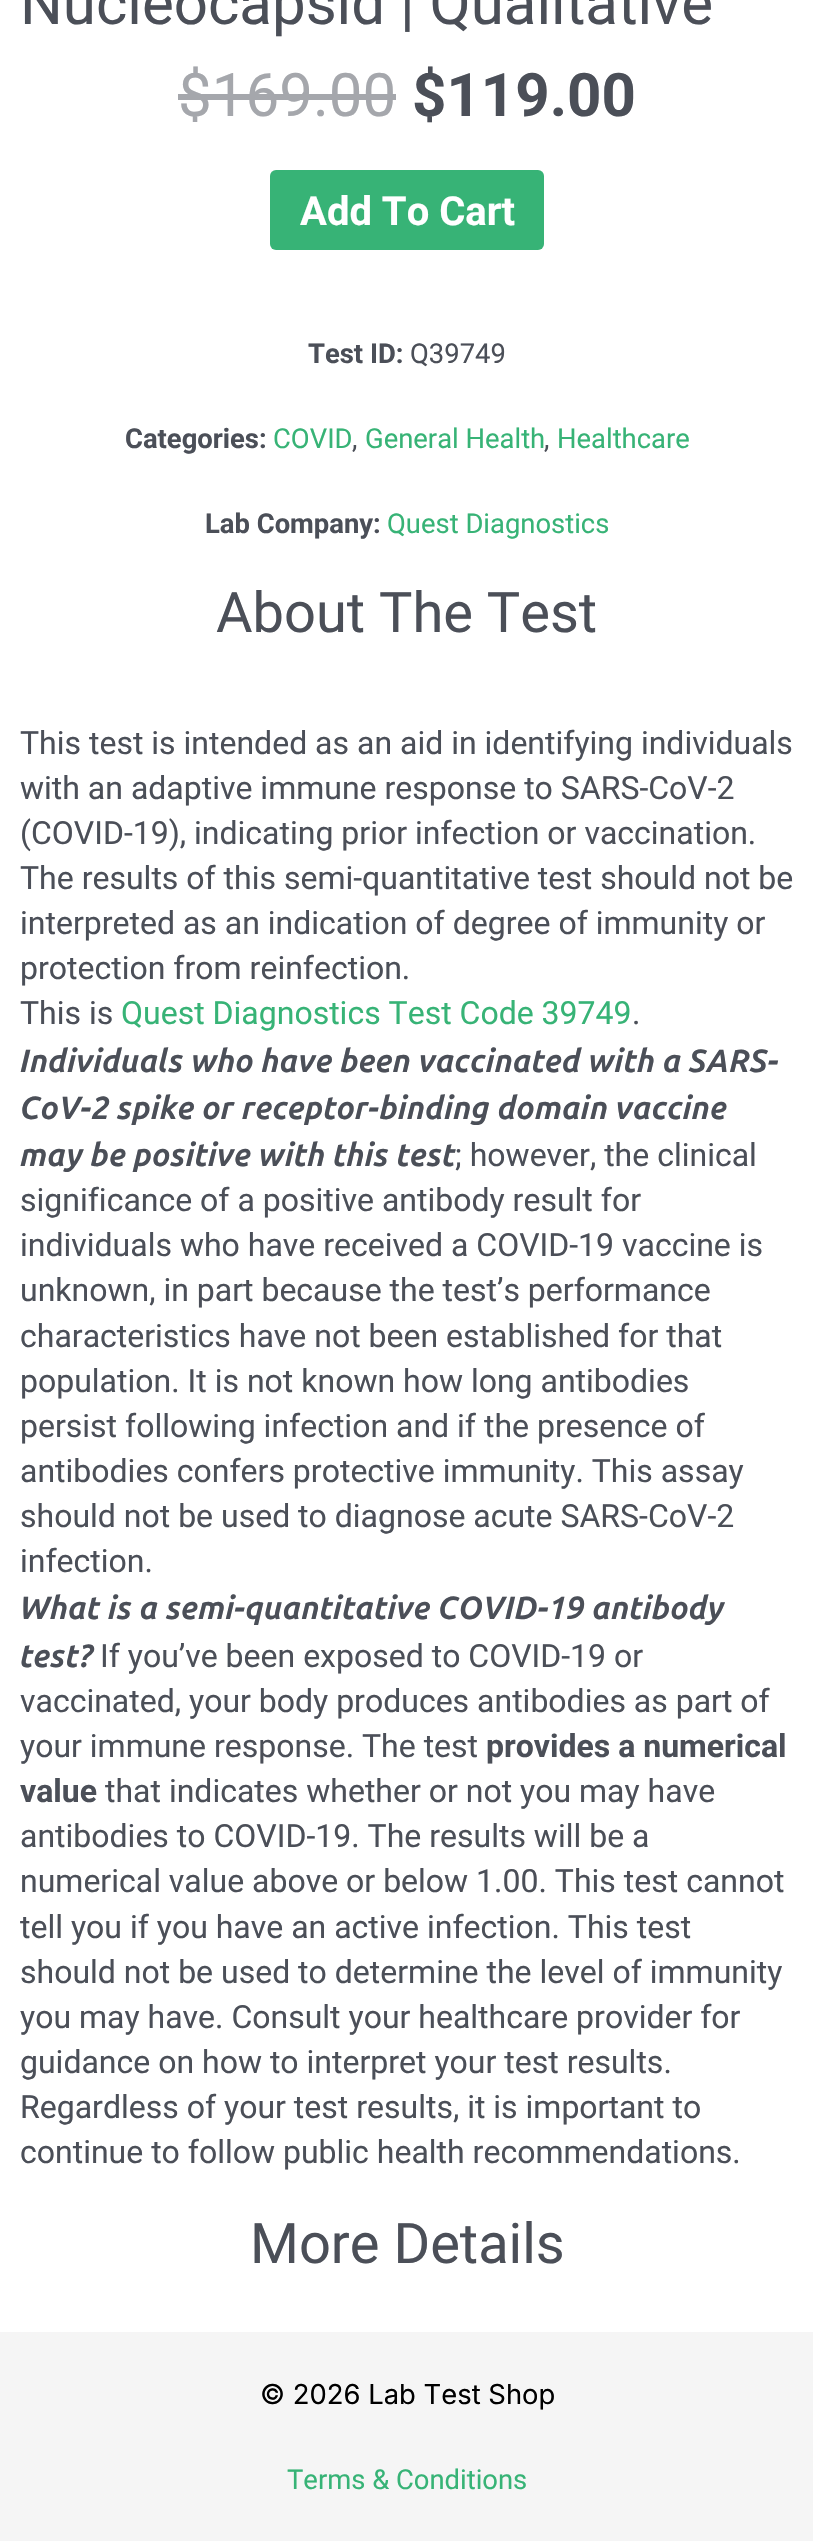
void draw(SkCanvas* canvas) {
  SkPaint paint;
  paint.setAntiAlias(true);
  auto face = [&](const char* family, int weight, float size, bool italic = false) {
    SkFontStyle style(weight, SkFontStyle::kNormal_Width,
      italic ? SkFontStyle::kItalic_Slant : SkFontStyle::kUpright_Slant);
    SkFont result(fontMgr->matchFamilyStyle(family, style), size);
    result.setSubpixel(true);
    return result;
  };
  canvas->clear(0xffffffff);
  paint.setColor(0xffa5a7ac);
  canvas->drawRect(SkRect::MakeXYWH(178, 94, 218, 6), paint);
  paint.setColor(0xff37b376);
  canvas->drawRoundRect(SkRect::MakeXYWH(270, 170, 274, 80), 6, 6, paint);
  paint.setColor(0xfff5f5f5);
  canvas->drawRect(SkRect::MakeXYWH(0, 2332, 813, 209), paint);
  auto f0 = face("Roboto", 400, 60);
  paint.setColor(0xff4b4f58);
  canvas->drawString("Nucleocapsid | Qualitative", 20, 24, f0, paint);
  paint.setColor(0xffa5a7ac);
  canvas->drawString("$169.00", 178, 116, f0, paint);
  auto f1 = face("Roboto", 700, 60);
  paint.setColor(0xff4b4f58);
  canvas->drawString("$119.00", 412, 116, f1, paint);
  auto f2 = face("Roboto", 700, 40);
  paint.setColor(0xffffffff);
  canvas->drawString("Add To Cart", 300, 225, f2, paint);
  auto f3 = face("Roboto", 700, 27.4f);
  paint.setColor(0xff4b4f58);
  canvas->drawString("Test ID:", 308, 363, f3, paint);
  auto f4 = face("Roboto", 400, 27.4f);
  canvas->drawString("Q39749", 410, 363, f4, paint);
  canvas->drawString("Categories:", 125, 448, f3, paint);
  paint.setColor(0xff37b376);
  canvas->drawString("COVID", 273, 448, f4, paint);
  paint.setColor(0xff4b4f58);
  canvas->drawString(",", 352, 448, f4, paint);
  paint.setColor(0xff37b376);
  canvas->drawString("General Health", 365, 448, f4, paint);
  paint.setColor(0xff4b4f58);
  canvas->drawString(",", 544, 448, f4, paint);
  paint.setColor(0xff37b376);
  canvas->drawString("Healthcare", 557, 448, f4, paint);
  paint.setColor(0xff4b4f58);
  canvas->drawString("Lab Company:", 205, 533, f3, paint);
  paint.setColor(0xff37b376);
  canvas->drawString("Quest Diagnostics", 387, 533, f4, paint);
  auto f5 = face("Roboto", 400, 56);
  paint.setColor(0xff4b4f58);
  canvas->drawString("About The Test", 216, 632, f5, paint);
  auto f6 = face("Roboto", 400, 32);
  {
    const struct { const char* s; float x, y; } items[] = {
      {"This test is intended as an aid in identifying individuals", 20, 754},
      {"with an adaptive immune response to SARS-CoV-2", 20, 799},
      {"(COVID-19), indicating prior infection or vaccination.", 20, 844},
      {"The results of this semi-quantitative test should not be", 20, 889},
      {"interpreted as an indication of degree of immunity or", 20, 934},
      {"protection from reinfection.", 20, 979},
      {"This is", 20, 1024},
    };
    for (auto [s, x, y] : items) {
      canvas->drawString(s, x, y, f6, paint);
    }
  }
  paint.setColor(0xff37b376);
  canvas->drawString("Quest Diagnostics Test Code 39749", 121, 1024, f6, paint);
  paint.setColor(0xff4b4f58);
  canvas->drawString(".", 632, 1024, f6, paint);
  auto f7 = face("Ubuntu", 700, 32, true);
  {
    const struct { const char* s; float x, y; } items[] = {
      {"Individuals who have been vaccinated with a SARS-", 20, 1072},
      {"CoV-2 spike or receptor-binding domain vaccine", 20, 1119},
      {"may be positive with this test", 20, 1166},
    };
    for (auto [s, x, y] : items) {
      canvas->drawString(s, x, y, f7, paint);
    }
  }
  {
    const struct { const char* s; float x, y; } items[] = {
      {"; however, the clinical", 455, 1166},
      {"significance of a positive antibody result for", 20, 1211},
      {"individuals who have received a COVID-19 vaccine is", 20, 1256},
      {"unknown, in part because the test’s performance", 20, 1301},
      {"characteristics have not been established for that", 20, 1347},
      {"population. It is not known how long antibodies", 20, 1392},
      {"persist following infection and if the presence of", 20, 1437},
      {"antibodies confers protective immunity. This assay", 20, 1482},
      {"should not be used to diagnose acute SARS-CoV-2", 20, 1527},
      {"infection.", 20, 1572},
    };
    for (auto [s, x, y] : items) {
      canvas->drawString(s, x, y, f6, paint);
    }
  }
  canvas->drawString("What is a semi-quantitative COVID-19 antibody", 20, 1619, f7, paint);
  canvas->drawString("test?", 20, 1667, f7, paint);
  {
    const struct { const char* s; float x, y; } items[] = {
      {"If you’ve been exposed to COVID-19 or", 100, 1667},
      {"vaccinated, your body produces antibodies as part of", 20, 1712},
      {"your immune response. The test", 20, 1757},
    };
    for (auto [s, x, y] : items) {
      canvas->drawString(s, x, y, f6, paint);
    }
  }
  auto f8 = face("Roboto", 700, 32);
  canvas->drawString("provides a numerical", 486, 1757, f8, paint);
  canvas->drawString("value", 20, 1802, f8, paint);
  {
    const struct { const char* s; float x, y; } items[] = {
      {"that indicates whether or not you may have", 105, 1802},
      {"antibodies to COVID-19. The results will be a", 20, 1847},
      {"numerical value above or below 1.00. This test cannot", 20, 1892},
      {"tell you if you have an active infection. This test", 20, 1938},
      {"should not be used to determine the level of immunity", 20, 1983},
      {"you may have. Consult your healthcare provider for", 20, 2028},
      {"guidance on how to interpret your test results.", 20, 2073},
      {"Regardless of your test results, it is important to", 20, 2118},
      {"continue to follow public health recommendations.", 20, 2163},
    };
    for (auto [s, x, y] : items) {
      canvas->drawString(s, x, y, f6, paint);
    }
  }
  canvas->drawString("More Details", 250, 2263, f5, paint);
  auto f9 = face("Inter", 400, 27.4f);
  paint.setColor(0xff000000);
  canvas->drawString("© 2026 Lab Test Shop", 260, 2404, f9, paint);
  paint.setColor(0xff37b376);
  canvas->drawString("Terms & Conditions", 287, 2489, f4, paint);
}
